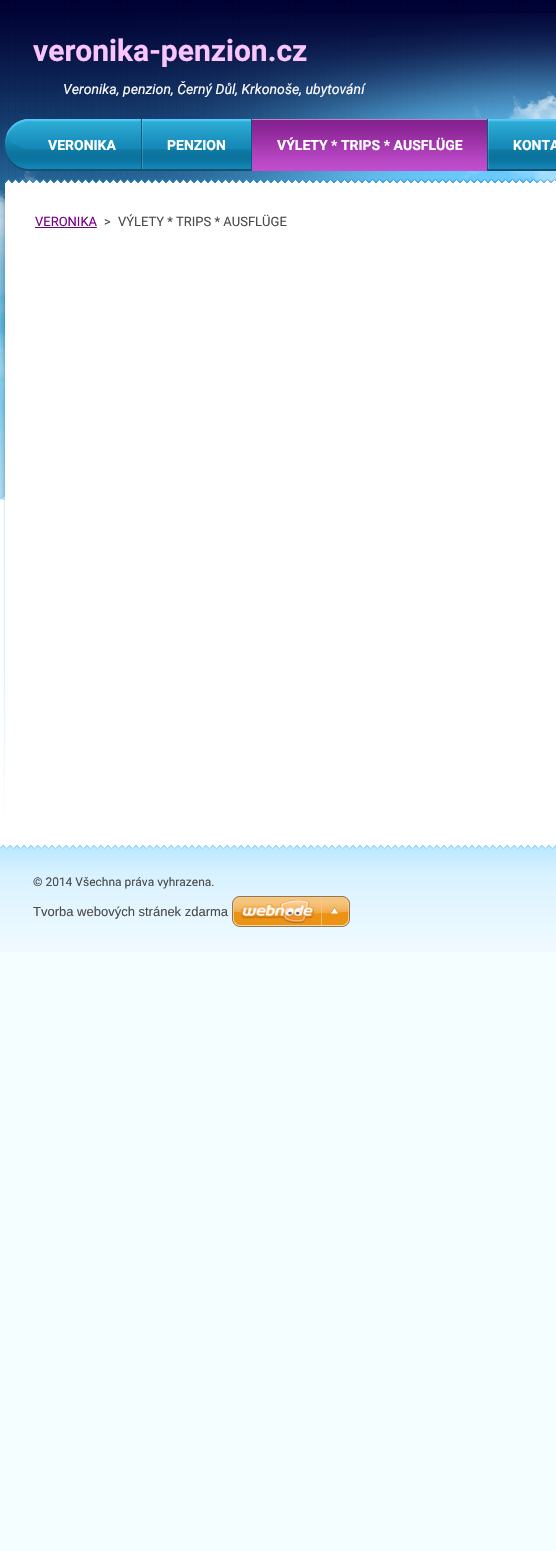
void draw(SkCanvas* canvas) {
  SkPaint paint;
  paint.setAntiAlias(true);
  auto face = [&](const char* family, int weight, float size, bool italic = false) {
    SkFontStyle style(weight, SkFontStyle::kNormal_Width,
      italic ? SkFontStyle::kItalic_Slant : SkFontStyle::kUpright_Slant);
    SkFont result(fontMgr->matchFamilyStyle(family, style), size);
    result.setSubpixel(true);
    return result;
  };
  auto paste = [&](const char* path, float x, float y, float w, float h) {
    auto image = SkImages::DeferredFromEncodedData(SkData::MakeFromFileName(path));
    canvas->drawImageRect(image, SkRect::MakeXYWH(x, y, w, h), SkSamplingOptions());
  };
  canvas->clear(0xfff4fdff);
  paint.setColor(0xffffffff);
  canvas->drawRect(SkRect::MakeXYWH(0, 499, 556, 346), paint);
  paste("img/1.png", 0, 0, 556, 499);
  paste("img/2.png", 0, 13, 556, 487);
  paste("img/3.png", 5, 119, 551, 52);
  paste("img/4.png", 141, 119, 2, 50);
  paste("img/5.png", 251, 119, 1, 50);
  paste("img/6.png", 252, 119, 235, 52);
  paste("img/4.png", 487, 119, 2, 50);
  paste("img/7.png", 3, 500, 2, 319);
  paint.setColor(0xff790084);
  canvas->drawRect(SkRect::MakeXYWH(35, 227, 62, 1), paint);
  paste("img/8.png", 0, 845, 556, 107);
  paste("img/9.png", 232, 896, 118, 31);
  auto f0 = face("Roboto", 700, 30);
  paint.setColor(0xfffac4ff);
  canvas->drawString("veronika-penzion.cz", 33, 61, f0, paint);
  auto f1 = face("Roboto", 400, 14, true);
  paint.setColor(0xffffffff);
  canvas->drawString("Veronika, penzion, Černý Důl, Krkonoše, ubytování", 63, 94, f1, paint);
  auto f2 = face("Roboto", 700, 14);
  {
    const struct { const char* s; float x, y; } items[] = {
      {"VERONIKA", 48, 150},
      {"PENZION", 167, 150},
      {"VÝLETY * TRIPS * AUSFLÜGE", 277, 150},
      {"KONTA", 513, 150},
    };
    for (auto [s, x, y] : items) {
      canvas->drawString(s, x, y, f2, paint);
    }
  }
  auto f3 = face("Roboto", 400, 13);
  paint.setColor(0xff790084);
  canvas->drawString("VERONIKA", 35, 226, f3, paint);
  paint.setColor(0xff4a4a4a);
  canvas->drawString(">", 104, 226, f3, paint);
  canvas->drawString("VÝLETY * TRIPS * AUSFLÜGE", 118, 226, f3, paint);
  auto f4 = face("Roboto", 400, 12);
  canvas->drawString("© 2014 Všechna práva vyhrazena.", 33, 886, f4, paint);
  auto f5 = face("Liberation Sans", 400, 13);
  canvas->drawString("Tvorba webových stránek zdarma", 33, 916, f5, paint);
}
